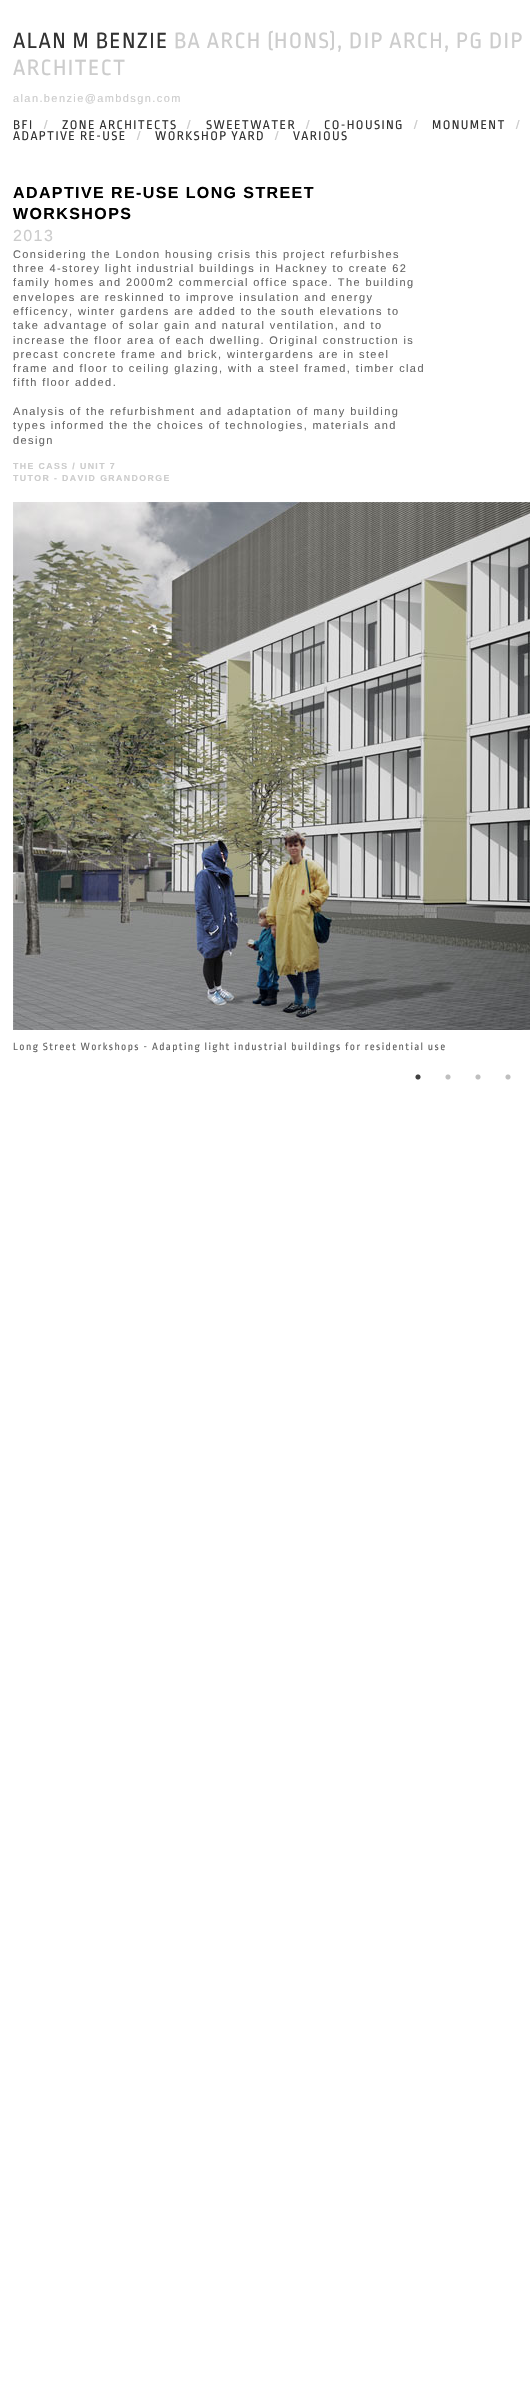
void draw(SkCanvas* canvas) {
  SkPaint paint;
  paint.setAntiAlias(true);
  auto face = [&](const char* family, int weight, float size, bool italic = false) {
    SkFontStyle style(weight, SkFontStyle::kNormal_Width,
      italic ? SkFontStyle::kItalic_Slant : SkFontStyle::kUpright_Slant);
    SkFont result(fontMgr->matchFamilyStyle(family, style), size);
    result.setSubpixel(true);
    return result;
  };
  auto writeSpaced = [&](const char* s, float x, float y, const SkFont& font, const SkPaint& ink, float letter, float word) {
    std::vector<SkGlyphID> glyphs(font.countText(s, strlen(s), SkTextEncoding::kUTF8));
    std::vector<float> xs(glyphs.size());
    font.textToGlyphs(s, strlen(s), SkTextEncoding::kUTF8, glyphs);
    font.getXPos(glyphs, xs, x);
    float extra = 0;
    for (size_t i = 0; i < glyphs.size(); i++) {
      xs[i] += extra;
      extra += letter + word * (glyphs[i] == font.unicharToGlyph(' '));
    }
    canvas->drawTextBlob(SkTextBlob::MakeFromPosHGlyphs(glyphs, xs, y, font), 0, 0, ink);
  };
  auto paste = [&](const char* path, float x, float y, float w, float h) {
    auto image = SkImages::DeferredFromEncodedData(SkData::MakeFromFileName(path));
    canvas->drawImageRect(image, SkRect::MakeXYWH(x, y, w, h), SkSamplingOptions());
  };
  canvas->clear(0xffffffff);
  paste("img/1.png", 13, 502, 517, 528);
  paste("img/2.png", 415, 1074, 6, 6);
  paste("img/3.png", 445, 1074, 6, 6);
  paste("img/3.png", 475, 1074, 6, 6);
  paste("img/3.png", 505, 1074, 6, 6);
  auto f0 = face("Ropa Sans", 400, 23.1f);
  paint.setColor(0xff333333);
  writeSpaced("ALAN M BENZIE", 13, 48, f0, paint, 1.4f, 0);
  paint.setColor(0xffcccccc);
  writeSpaced("BA ARCH (HONS), DIP ARCH, PG DIP", 174, 48, f0, paint, 1.4f, 0);
  writeSpaced("ARCHITECT", 13, 75, f0, paint, 1.4f, 0);
  auto f1 = face("Liberation Sans", 400, 11);
  writeSpaced("alan.benzie@ambdsgn.com", 13, 102, f1, paint, 1.4f, 0);
  auto f2 = face("Ropa Sans", 400, 13.25f);
  paint.setColor(0xff333333);
  writeSpaced("BFI", 13, 129, f2, paint, 1.4f, 0);
  paint.setColor(0xffcccccc);
  writeSpaced("/", 44, 129, f2, paint, 1.4f, 0);
  paint.setColor(0xff333333);
  writeSpaced("ZONE ARCHITECTS", 62, 129, f2, paint, 1.4f, 0);
  paint.setColor(0xffcccccc);
  writeSpaced("/", 187, 129, f2, paint, 1.4f, 0);
  paint.setColor(0xff333333);
  writeSpaced("SWEETWATER", 206, 129, f2, paint, 1.4f, 0);
  paint.setColor(0xffcccccc);
  writeSpaced("/", 306, 129, f2, paint, 1.4f, 0);
  paint.setColor(0xff333333);
  writeSpaced("CO-HOUSING", 324, 129, f2, paint, 1.4f, 0);
  paint.setColor(0xffcccccc);
  writeSpaced("/", 414, 129, f2, paint, 1.4f, 0);
  paint.setColor(0xff333333);
  writeSpaced("MONUMENT", 432, 129, f2, paint, 1.4f, 0);
  paint.setColor(0xffcccccc);
  writeSpaced("/", 516, 129, f2, paint, 1.4f, 0);
  paint.setColor(0xff333333);
  writeSpaced("ADAPTIVE RE-USE", 13, 140, f2, paint, 1.4f, 0);
  paint.setColor(0xffcccccc);
  writeSpaced("/", 137, 140, f2, paint, 1.4f, 0);
  paint.setColor(0xff333333);
  writeSpaced("WORKSHOP YARD", 155, 140, f2, paint, 1.4f, 0);
  paint.setColor(0xffcccccc);
  writeSpaced("/", 275, 140, f2, paint, 1.4f, 0);
  paint.setColor(0xff333333);
  writeSpaced("VARIOUS", 293, 140, f2, paint, 1.4f, 0);
  auto f3 = face("Liberation Sans", 700, 16);
  paint.setColor(0xff000000);
  writeSpaced("ADAPTIVE RE-USE LONG STREET", 13, 198, f3, paint, 1.4f, 0);
  writeSpaced("WORKSHOPS", 13, 219, f3, paint, 1.4f, 0);
  auto f4 = face("Liberation Sans", 400, 16);
  paint.setColor(0xffcccccc);
  writeSpaced("2013", 13, 241, f4, paint, 1.4f, 0);
  paint.setColor(0xff666666);
  {
    const struct { const char* s; float x, y; } items[] = {
      {"Considering the London housing crisis this project refurbishes", 13, 258},
      {"three 4-storey light industrial buildings in Hackney to create 62", 13, 272},
      {"family homes and 2000m2 commercial office space. The building", 13, 286},
      {"envelopes are reskinned to improve insulation and energy", 13, 301},
      {"efficency, winter gardens are added to the south elevations to", 13, 315},
      {"take advantage of solar gain and natural ventilation, and to", 13, 329},
      {"increase the floor area of each dwelling. Original construction is", 13, 344},
      {"precast concrete frame and brick, wintergardens are in steel", 13, 358},
      {"frame and floor to ceiling glazing, with a steel framed, timber clad", 13, 372},
      {"fifth floor added.", 13, 386},
      {"Analysis of the refurbishment and adaptation of many building", 13, 415},
      {"types informed the the choices of technologies, materials and", 13, 429},
      {"design", 13, 444},
    };
    for (auto [s, x, y] : items) {
      writeSpaced(s, x, y, f1, paint, 1.4f, 0);
    }
  }
  auto f5 = face("Liberation Sans", 700, 8.75f);
  paint.setColor(0xffcccccc);
  writeSpaced("THE CASS / UNIT 7", 13, 469, f5, paint, 1.4f, 0);
  writeSpaced("TUTOR - DAVID GRANDORGE", 13, 481, f5, paint, 1.4f, 0);
  auto f6 = face("Ropa Sans", 400, 11);
  paint.setColor(0xff666666);
  writeSpaced("Long Street Workshops - Adapting light industrial buildings for residential use", 13, 1050, f6, paint, 1.4f, 0);
}
